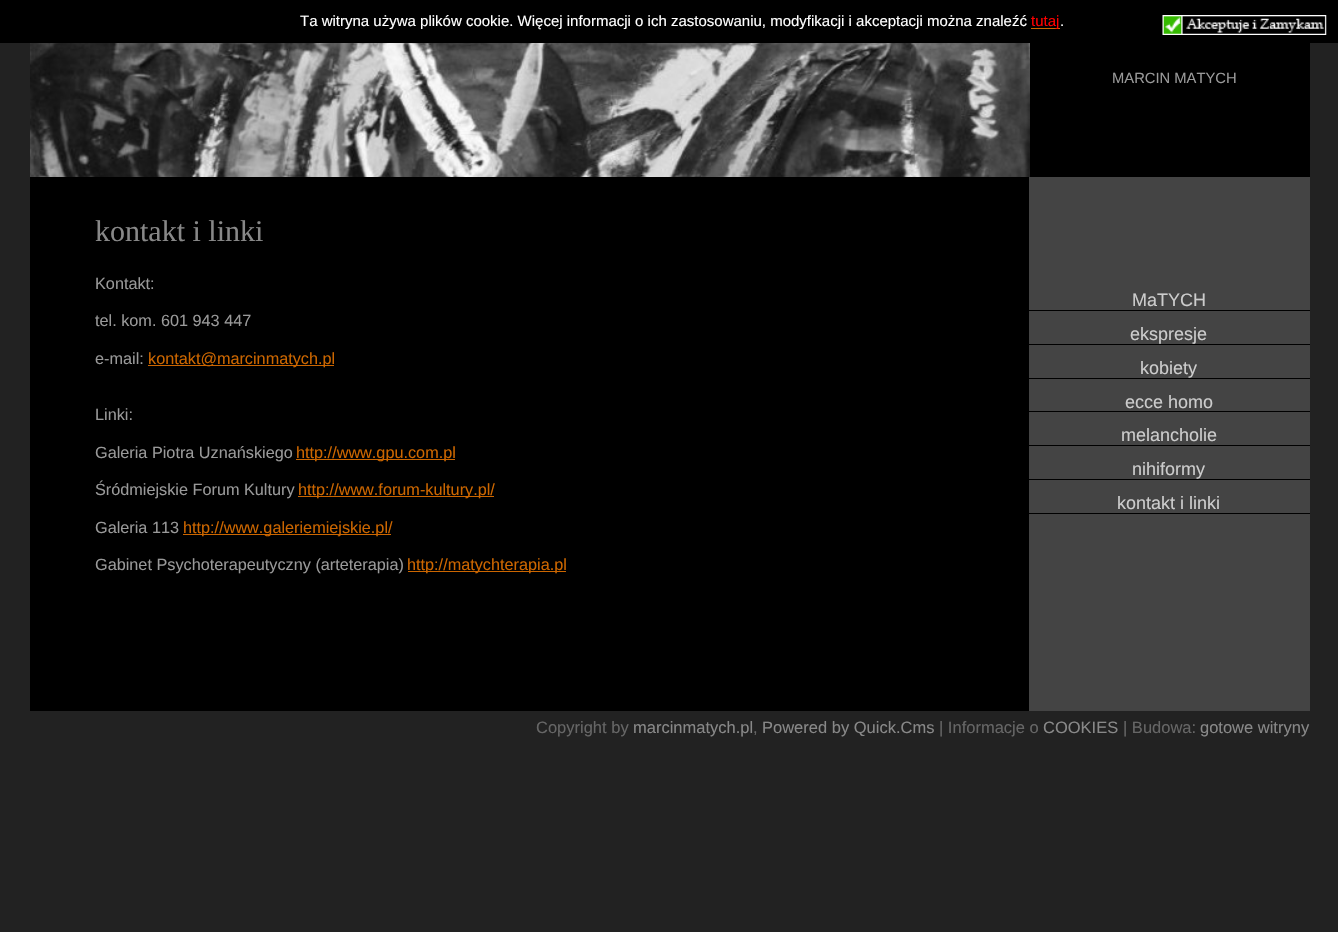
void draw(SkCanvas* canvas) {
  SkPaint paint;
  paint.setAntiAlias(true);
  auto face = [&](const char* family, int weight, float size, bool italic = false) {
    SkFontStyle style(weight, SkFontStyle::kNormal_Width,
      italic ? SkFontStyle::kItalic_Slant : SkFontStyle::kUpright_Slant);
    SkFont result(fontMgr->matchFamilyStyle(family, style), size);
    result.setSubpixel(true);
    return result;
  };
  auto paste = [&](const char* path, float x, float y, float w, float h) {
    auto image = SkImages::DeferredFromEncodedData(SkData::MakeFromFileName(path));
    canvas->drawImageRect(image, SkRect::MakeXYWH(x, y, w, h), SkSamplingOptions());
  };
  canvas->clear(0xff222222);
  paint.setColor(0xff000000);
  canvas->drawRect(SkRect::MakeXYWH(0, 0, 1338, 43), paint);
  paint.setColor(0xffcc6600);
  canvas->drawRect(SkRect::MakeXYWH(1031, 28, 29, 1), paint);
  paste("img/1.png", 1162, 15, 165, 20);
  paint.setColor(0xff444444);
  canvas->drawRect(SkRect::MakeXYWH(1029, 177, 281, 534), paint);
  paint.setColor(0xff000000);
  canvas->drawRect(SkRect::MakeXYWH(1030, 43, 280, 134), paint);
  paste("img/2.png", 30, 43, 1000, 134);
  {
    const struct { float x, y, w, h; SkColor color; } items[] = {
      {30, 177, 999, 534, 0xff000000},
      {148, 365, 186, 1, 0xffcc6600},
      {296, 459, 159, 1, 0xffcc6600},
      {298, 496, 196, 1, 0xffcc6600},
      {183, 534, 208, 1, 0xffcc6600},
      {408, 571, 158, 1, 0xffcc6600},
      {1029, 310, 281, 1, 0xff000000},
      {1029, 344, 281, 1, 0xff000000},
      {1029, 378, 281, 1, 0xff000000},
      {1029, 411, 281, 1, 0xff000000},
      {1029, 445, 281, 1, 0xff000000},
      {1029, 479, 281, 1, 0xff000000},
      {1029, 513, 281, 1, 0xff000000},
    };
    for (auto [x, y, w, h, color] : items) {
      paint.setColor(color);
      canvas->drawRect(SkRect::MakeXYWH(x, y, w, h), paint);
    }
  }
  auto f0 = face("Liberation Sans", 400, 15);
  paint.setColor(0xffffffff);
  canvas->drawString("Ta witryna używa plików cookie. Więcej informacji o ich zastosowaniu, modyfikacji i akceptacji można znaleźć", 300, 26, f0, paint);
  paint.setColor(0xffff0000);
  canvas->drawString("tutaj", 1031, 26, f0, paint);
  paint.setColor(0xffffffff);
  canvas->drawString(".", 1060, 26, f0, paint);
  auto f1 = face("Liberation Sans", 400, 14.75f);
  paint.setColor(0xff999999);
  canvas->drawString("MARCIN MATYCH", 1112, 83, f1, paint);
  auto f2 = face("Liberation Serif", 400, 30);
  paint.setColor(0xff888888);
  canvas->drawString("kontakt i linki", 95, 241, f2, paint);
  auto f3 = face("Liberation Sans", 400, 16.25f);
  paint.setColor(0xff999999);
  {
    const struct { const char* s; float x, y; } items[] = {
      {"Kontakt:", 95, 289},
      {"tel. kom. 601 943 447", 95, 326},
      {"e-mail:", 95, 364},
    };
    for (auto [s, x, y] : items) {
      canvas->drawString(s, x, y, f3, paint);
    }
  }
  paint.setColor(0xffcc6600);
  canvas->drawString("kontakt@marcinmatych.pl", 148, 364, f3, paint);
  paint.setColor(0xff999999);
  canvas->drawString("Linki:", 95, 420, f3, paint);
  canvas->drawString("Galeria Piotra Uznańskiego", 95, 458, f3, paint);
  paint.setColor(0xffcc6600);
  canvas->drawString("http://www.gpu.com.pl", 296, 458, f3, paint);
  paint.setColor(0xff999999);
  canvas->drawString("Śródmiejskie Forum Kultury", 95, 495, f3, paint);
  paint.setColor(0xffcc6600);
  canvas->drawString("http://www.forum-kultury.pl/", 298, 495, f3, paint);
  paint.setColor(0xff999999);
  canvas->drawString("Galeria 113", 95, 533, f3, paint);
  paint.setColor(0xffcc6600);
  canvas->drawString("http://www.galeriemiejskie.pl/", 183, 533, f3, paint);
  paint.setColor(0xff999999);
  canvas->drawString("Gabinet Psychoterapeutyczny (arteterapia)", 95, 570, f3, paint);
  paint.setColor(0xffcc6600);
  canvas->drawString("http://matychterapia.pl", 407, 570, f3, paint);
  auto f4 = face("Liberation Sans", 400, 18);
  paint.setColor(0xffcccccc);
  {
    const struct { const char* s; float x, y; } items[] = {
      {"MaTYCH", 1132, 306},
      {"ekspresje", 1130, 340},
      {"kobiety", 1140, 374},
      {"ecce homo", 1125, 408},
      {"melancholie", 1121, 441},
      {"nihiformy", 1132, 475},
      {"kontakt i linki", 1117, 509},
    };
    for (auto [s, x, y] : items) {
      canvas->drawString(s, x, y, f4, paint);
    }
  }
  auto f5 = face("Liberation Sans", 400, 16.5f);
  paint.setColor(0xff666666);
  canvas->drawString("Copyright by", 536, 733, f5, paint);
  paint.setColor(0xff888888);
  canvas->drawString("marcinmatych.pl", 633, 733, f5, paint);
  paint.setColor(0xff666666);
  canvas->drawString(",", 753, 733, f5, paint);
  paint.setColor(0xff888888);
  canvas->drawString("Powered by Quick.Cms", 762, 733, f5, paint);
  paint.setColor(0xff666666);
  canvas->drawString("| Informacje o", 939, 733, f5, paint);
  paint.setColor(0xff888888);
  canvas->drawString("COOKIES", 1043, 733, f5, paint);
  paint.setColor(0xff666666);
  canvas->drawString("| Budowa:", 1123, 733, f5, paint);
  paint.setColor(0xff888888);
  canvas->drawString("gotowe witryny", 1200, 733, f5, paint);
}
